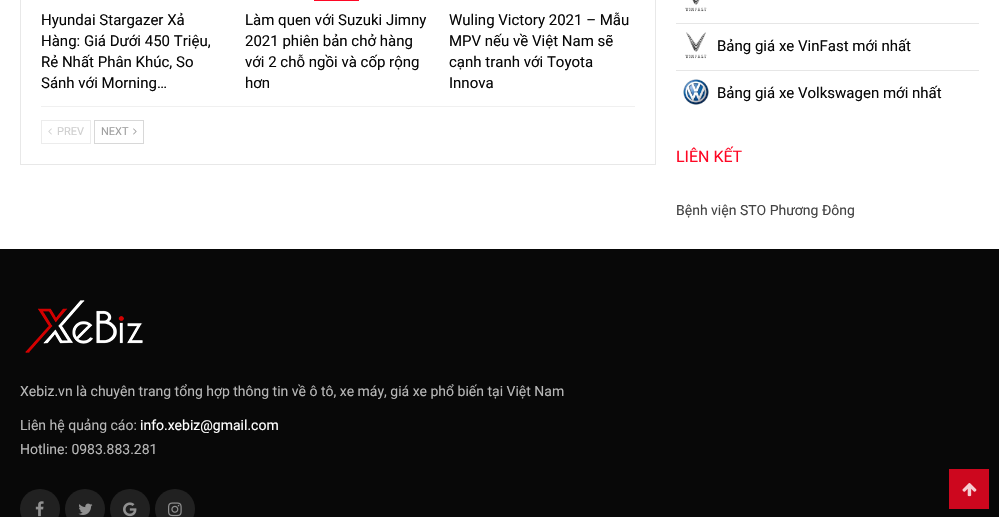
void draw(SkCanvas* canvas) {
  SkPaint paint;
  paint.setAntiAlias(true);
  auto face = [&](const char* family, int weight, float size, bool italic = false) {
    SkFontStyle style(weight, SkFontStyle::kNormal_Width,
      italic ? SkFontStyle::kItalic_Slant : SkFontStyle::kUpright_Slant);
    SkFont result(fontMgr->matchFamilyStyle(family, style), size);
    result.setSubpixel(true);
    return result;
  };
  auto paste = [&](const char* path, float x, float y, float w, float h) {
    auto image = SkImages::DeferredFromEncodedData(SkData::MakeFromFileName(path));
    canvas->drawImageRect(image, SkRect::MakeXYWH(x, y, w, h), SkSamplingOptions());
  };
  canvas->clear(0xff080808);
  paint.setColor(0xffffffff);
  canvas->drawRect(SkRect::MakeXYWH(0, 0, 999, 249), paint);
  paint.setStroke(true);
  paint.setStrokeWidth(1);
  paint.setColor(0xffe8e8e8);
  canvas->drawRect(SkRect::MakeXYWH(20.5f, -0.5f, 635, 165), paint);
  paint.setStroke(false);
  paint.setColor(0xfffe0724);
  canvas->drawRect(SkRect::MakeXYWH(314, 0, 45, 1), paint);
  paint.setColor(0xfff0f0f0);
  canvas->drawRect(SkRect::MakeXYWH(41, 106, 594, 1), paint);
  paint.setStroke(true);
  paint.setColor(0xffececec);
  canvas->drawRect(SkRect::MakeXYWH(41.5f, 120.5f, 49, 23), paint);
  paste("img/1.png", 48, 128, 4, 7);
  paint.setColor(0xffd8d8d8);
  canvas->drawRect(SkRect::MakeXYWH(94.5f, 120.5f, 49, 23), paint);
  paste("img/2.png", 133, 128, 4, 7);
  paint.setStroke(false);
  paint.setColor(0xffe6e6e6);
  canvas->drawRect(SkRect::MakeXYWH(676, 23, 303, 1), paint);
  paste("img/3.png", 685, 0, 22, 12);
  canvas->drawRect(SkRect::MakeXYWH(676, 70, 303, 1), paint);
  paste("img/4.png", 685, 32, 22, 27);
  paste("img/5.png", 683, 79, 26, 26);
  paste("img/6.png", 25, 300, 118, 53);
  paint.setColor(0xff212121);
  canvas->drawCircle(40, 509, 20, paint);
  paste("img/7.png", 35, 501, 9, 16);
  canvas->drawCircle(85, 509, 20, paint);
  paste("img/8.png", 78, 503, 15, 12);
  canvas->drawCircle(130, 509, 20, paint);
  paste("img/9.png", 123, 502, 14, 15);
  canvas->drawCircle(175, 509, 20, paint);
  paste("img/10.png", 168, 502, 14, 15);
  paint.setColor(0xffcd071e);
  canvas->drawRect(SkRect::MakeXYWH(949, 469, 40, 40), paint);
  paste("img/11.png", 962, 483, 15, 14);
  auto f0 = face("Roboto", 400, 15);
  paint.setColor(0xff080808);
  {
    const struct { const char* s; float x, y; } items[] = {
      {"Hyundai Stargazer Xả", 41, 25},
      {"Hàng: Giá Dưới 450 Triệu,", 41, 46},
      {"Rẻ Nhất Phân Khúc, So", 41, 67},
      {"Sánh với Morning…", 41, 88},
      {"Làm quen với Suzuki Jimny", 245, 25},
      {"2021 phiên bản chở hàng", 245, 46},
      {"với 2 chỗ ngồi và cốp rộng", 245, 67},
      {"hơn", 245, 88},
      {"Wuling Victory 2021 – Mẫu", 449, 25},
      {"MPV nếu về Việt Nam sẽ", 449, 46},
      {"cạnh tranh với Toyota", 449, 67},
      {"Innova", 449, 88},
    };
    for (auto [s, x, y] : items) {
      canvas->drawString(s, x, y, f0, paint);
    }
  }
  auto f1 = face("Roboto", 400, 11);
  paint.setColor(0xffcfcfcf);
  canvas->drawString("PREV", 57, 135, f1, paint);
  paint.setColor(0xff9e9e9e);
  canvas->drawString("NEXT", 101, 135, f1, paint);
  paint.setColor(0xff080808);
  canvas->drawString("Bảng giá xe VinFast mới nhất", 717, 51, f0, paint);
  canvas->drawString("Bảng giá xe Volkswagen mới nhất", 717, 98, f0, paint);
  auto f2 = face("Roboto", 400, 16);
  paint.setColor(0xfffe0724);
  canvas->drawString("LIÊN KẾT", 676, 162, f2, paint);
  auto f3 = face("Roboto", 400, 14);
  paint.setColor(0xff444444);
  canvas->drawString("Bệnh viện STO Phương Đông", 676, 215, f3, paint);
  paint.setColor(0xffb7b7b7);
  canvas->drawString("Xebiz.vn là chuyên trang tổng hợp thông tin về ô tô, xe máy, giá xe phổ biến tại Việt Nam", 20, 396, f3, paint);
  canvas->drawString("Liên hệ quảng cáo:", 20, 430, f3, paint);
  paint.setColor(0xffffffff);
  canvas->drawString("info.xebiz@gmail.com", 140, 430, f3, paint);
  paint.setColor(0xffb7b7b7);
  canvas->drawString("Hotline: 0983.883.281", 20, 454, f3, paint);
}
